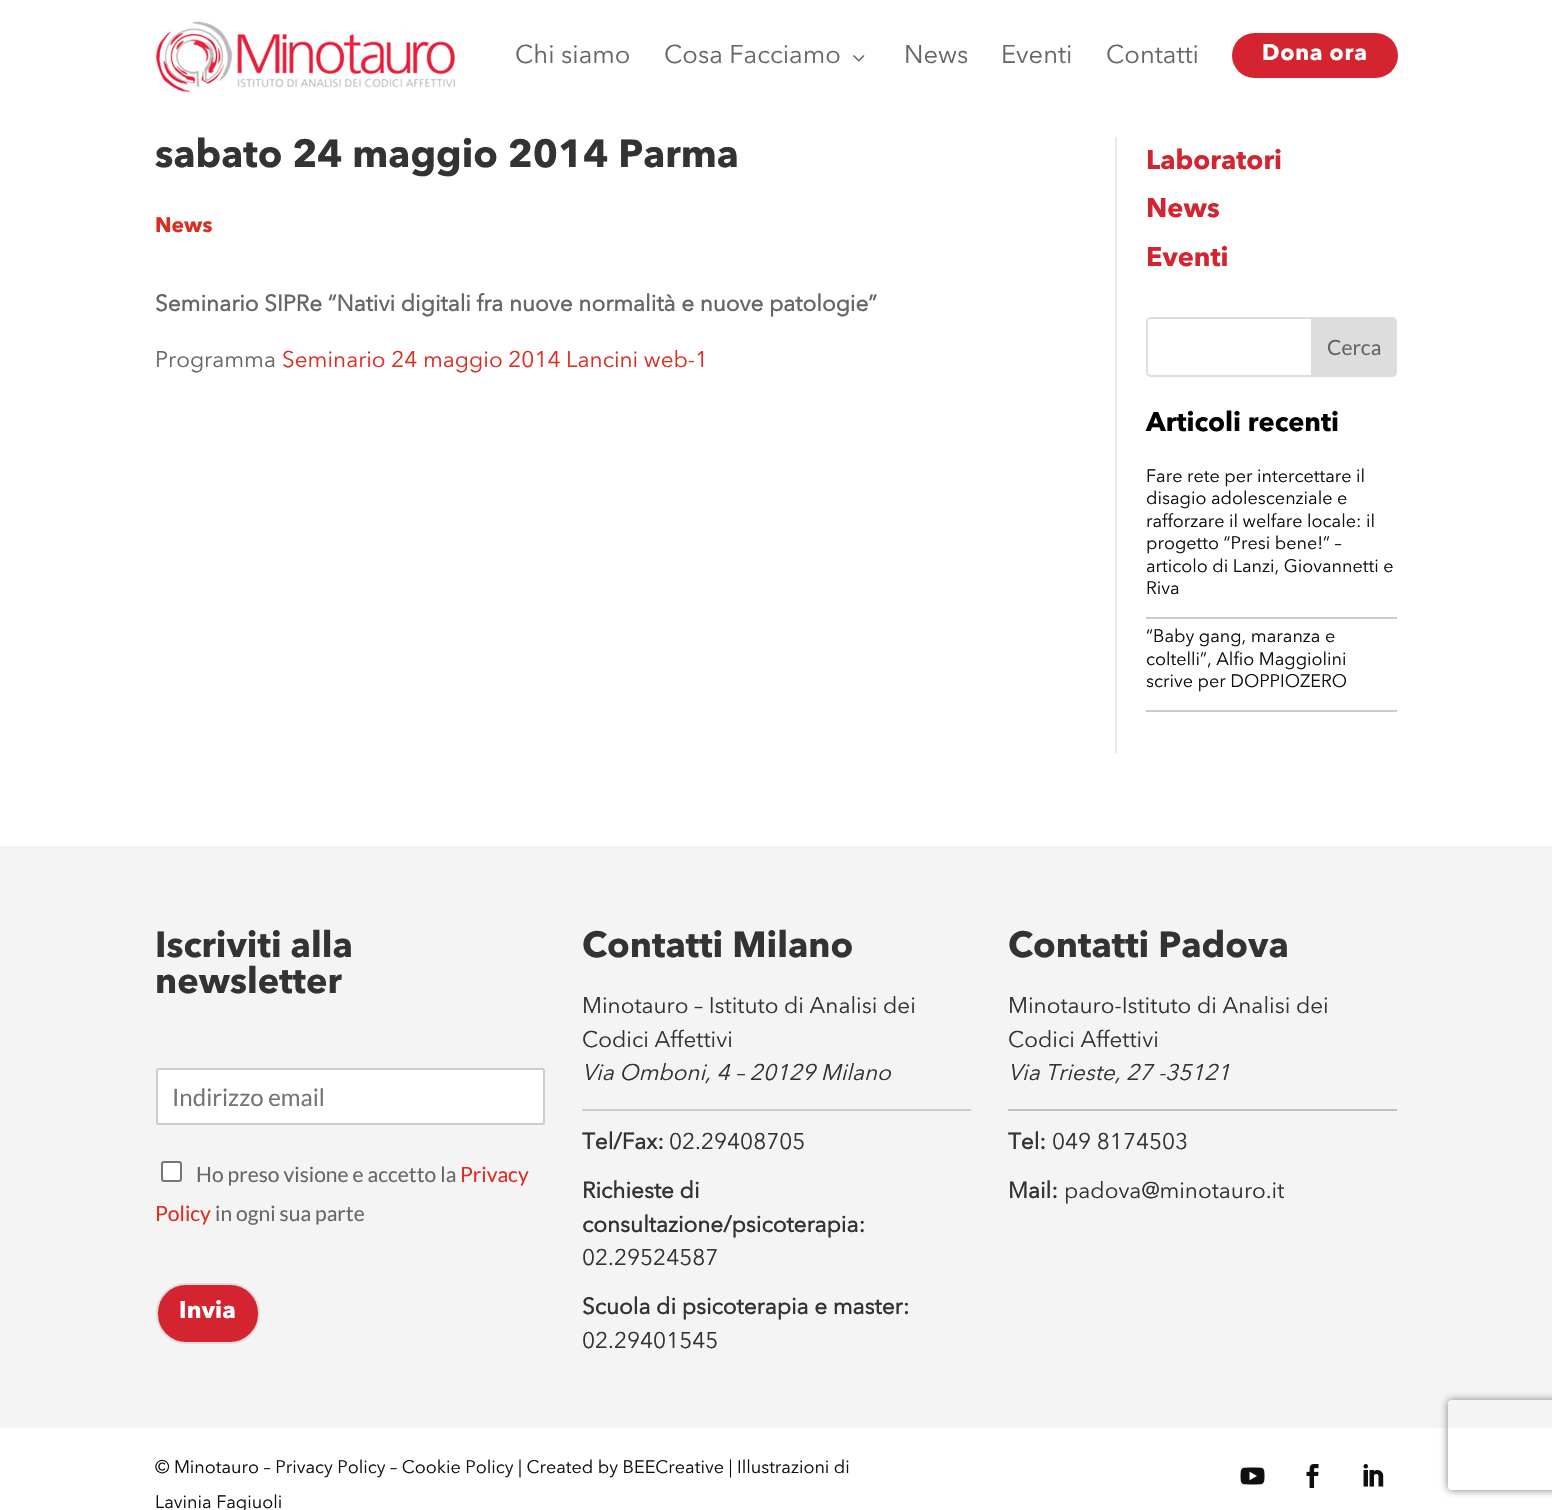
void draw(SkCanvas* canvas) {
  SkPaint paint;
  paint.setAntiAlias(true);
  auto face = [&](const char* family, int weight, float size, bool italic = false) {
    SkFontStyle style(weight, SkFontStyle::kNormal_Width,
      italic ? SkFontStyle::kItalic_Slant : SkFontStyle::kUpright_Slant);
    SkFont result(fontMgr->matchFamilyStyle(family, style), size);
    result.setSubpixel(true);
    return result;
  };
  auto writeSpaced = [&](const char* s, float x, float y, const SkFont& font, const SkPaint& ink, float letter, float word) {
    std::vector<SkGlyphID> glyphs(font.countText(s, strlen(s), SkTextEncoding::kUTF8));
    std::vector<float> xs(glyphs.size());
    font.textToGlyphs(s, strlen(s), SkTextEncoding::kUTF8, glyphs);
    font.getXPos(glyphs, xs, x);
    float extra = 0;
    for (size_t i = 0; i < glyphs.size(); i++) {
      xs[i] += extra;
      extra += letter + word * (glyphs[i] == font.unicharToGlyph(' '));
    }
    canvas->drawTextBlob(SkTextBlob::MakeFromPosHGlyphs(glyphs, xs, y, font), 0, 0, ink);
  };
  auto paste = [&](const char* path, float x, float y, float w, float h) {
    auto image = SkImages::DeferredFromEncodedData(SkData::MakeFromFileName(path));
    canvas->drawImageRect(image, SkRect::MakeXYWH(x, y, w, h), SkSamplingOptions());
  };
  auto shape = [&](const char* data, bool evenOdd = false) {
    SkPath result = *SkParsePath::FromSVGString(data);
    if (evenOdd) result.setFillType(SkPathFillType::kEvenOdd);
    return result;
  };
  canvas->clear(0xffffffff);
  paste("img/1.png", 156, 21, 300, 72);
  paste("img/2.png", 853, 55, 12, 7);
  paint.setColor(0xffd4242f);
  canvas->drawRoundRect(SkRect::MakeXYWH(1232, 33, 166, 45), 22.5f, 22.5f, paint);
  paint.setColor(0xffe9e9e9);
  canvas->drawRect(SkRect::MakeXYWH(1115, 137, 2, 616), paint);
  paint.setStroke(true);
  paint.setStrokeWidth(2);
  paint.setColor(0xffdddddd);
  canvas->drawRoundRect(SkRect::MakeXYWH(1147, 318, 249, 58), 4, 4, paint);
  paint.setStroke(false);
  canvas->drawPath(shape("M1312 318H1392C1394 318 1396 320 1396 322V372C1396 374 1394 376 1392 376H1312Z"), paint);
  paint.setStroke(true);
  canvas->drawPath(shape("M1312 318H1392C1394 318 1396 320 1396 322V372C1396 374 1394 376 1392 376H1312Z"), paint);
  paint.setStroke(false);
  {
    const struct { float x, y, w, h; SkColor color; } items[] = {
      {1146, 617, 251, 2, 0xffcccccc},
      {1146, 710, 251, 2, 0xffcccccc},
      {0, 846, 1552, 582, 0xfff4f4f4},
    };
    for (auto [x, y, w, h, color] : items) {
      paint.setColor(color);
      canvas->drawRect(SkRect::MakeXYWH(x, y, w, h), paint);
    }
  }
  paint.setColor(0xffffffff);
  canvas->drawRoundRect(SkRect::MakeXYWH(157, 1069, 387, 55), 2, 2, paint);
  paint.setStroke(true);
  paint.setColor(0xffcccccc);
  canvas->drawRoundRect(SkRect::MakeXYWH(157, 1069, 387, 55), 2, 2, paint);
  paint.setStroke(false);
  paint.setColor(0xffffffff);
  canvas->drawRoundRect(SkRect::MakeXYWH(162, 1162, 19, 19), 2, 2, paint);
  paint.setStroke(true);
  paint.setColor(0xff767676);
  canvas->drawRoundRect(SkRect::MakeXYWH(162, 1162, 19, 19), 2, 2, paint);
  paint.setStroke(false);
  paint.setColor(0xffd4242f);
  canvas->drawRoundRect(SkRect::MakeXYWH(157, 1284, 102, 59), 29, 29, paint);
  paint.setStroke(true);
  paint.setColor(0xffdddddd);
  canvas->drawRoundRect(SkRect::MakeXYWH(157, 1284, 102, 59), 29, 29, paint);
  paint.setStroke(false);
  paint.setColor(0xffcdcdcd);
  canvas->drawRect(SkRect::MakeXYWH(582, 1109, 389, 2), paint);
  paint.setColor(0xffc0bfbf);
  canvas->drawRect(SkRect::MakeXYWH(1008, 1109, 389, 2), paint);
  paste("img/3.png", 1240, 1467, 25, 18);
  paste("img/4.png", 1306, 1464, 13, 24);
  paste("img/5.png", 1363, 1464, 21, 23);
  canvas->save();
  canvas->clipPath(shape("M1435 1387H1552V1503H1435ZM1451 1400H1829C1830.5 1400 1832 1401.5 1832 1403V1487C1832 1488.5 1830.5 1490 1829 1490H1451C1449.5 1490 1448 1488.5 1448 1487V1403C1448 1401.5 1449.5 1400 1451 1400Z", true), true);
  paint.setColor(0xff808080);
  paint.setMaskFilter(SkMaskFilter::MakeBlur(kNormal_SkBlurStyle, 4));
  canvas->drawRoundRect(SkRect::MakeXYWH(1448, 1400, 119, 90), 3, 3, paint);
  paint.setMaskFilter(nullptr);
  canvas->restore();
  auto f0 = face("Avenir Next", 400, 25.5f);
  paint.setColor(0xff666666);
  {
    const struct { const char* s; float x, y; } items[] = {
      {"Chi siamo", 515, 63},
      {"Cosa Facciamo", 664, 63},
      {"News", 904, 63},
      {"Eventi", 1001, 63},
      {"Contatti", 1106, 63},
    };
    for (auto [s, x, y] : items) {
      canvas->drawString(s, x, y, f0, paint);
    }
  }
  auto f1 = face("Avenir Next", 700, 22.5f);
  paint.setColor(0xffffffff);
  writeSpaced("Dona ora", 1262, 60, f1, paint, 0.75f, 0);
  auto f2 = face("Avenir Next", 700, 39);
  paint.setColor(0xff333333);
  canvas->drawString("sabato 24 maggio 2014 Parma", 155, 167, f2, paint);
  auto f3 = face("Avenir Next", 700, 21);
  paint.setColor(0xffe02b20);
  canvas->drawString("News", 155, 232, f3, paint);
  auto f4 = face("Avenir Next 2", 700, 22.5f);
  paint.setColor(0xff666666);
  canvas->drawString("Seminario SIPRe “Nativi digitali fra nuove normalità e nuove patologie”", 155, 311, f4, paint);
  auto f5 = face("Avenir Next", 400, 22.5f);
  canvas->drawString("Programma", 155, 367, f5, paint);
  paint.setColor(0xffe02b20);
  canvas->drawString("Seminario 24 maggio 2014 Lancini web-1", 282, 367, f5, paint);
  auto f6 = face("Avenir Next", 700, 27);
  paint.setColor(0xffd4242f);
  {
    const struct { const char* s; float x, y; } items[] = {
      {"Laboratori", 1146, 169},
      {"News", 1146, 217},
      {"Eventi", 1146, 266},
    };
    for (auto [s, x, y] : items) {
      canvas->drawString(s, x, y, f6, paint);
    }
  }
  auto f7 = face("Lato", 400, 21);
  paint.setColor(0xff666666);
  canvas->drawString("Cerca", 1327, 355, f7, paint);
  paint.setColor(0xff000000);
  canvas->drawString("Articoli recenti", 1146, 431, f6, paint);
  auto f8 = face("Avenir Next", 400, 18);
  paint.setColor(0xff100f0d);
  {
    const struct { const char* s; float x, y; } items[] = {
      {"Fare rete per intercettare il", 1146, 482},
      {"disagio adolescenziale e", 1146, 504},
      {"rafforzare il welfare locale: il", 1146, 527},
      {"progetto “Presi bene!” –", 1146, 549},
      {"articolo di Lanzi, Giovannetti e", 1146, 572},
      {"Riva", 1146, 594},
      {"“Baby gang, maranza e", 1146, 642},
      {"coltelli”, Alfio Maggiolini", 1146, 665},
      {"scrive per DOPPIOZERO", 1146, 687},
    };
    for (auto [s, x, y] : items) {
      canvas->drawString(s, x, y, f8, paint);
    }
  }
  auto f9 = face("Avenir Next", 700, 36);
  paint.setColor(0xff333333);
  canvas->drawString("Iscriviti alla", 155, 957, f9, paint);
  canvas->drawString("newsletter", 155, 993, f9, paint);
  auto f10 = face("Lato", 400, 24);
  paint.setColor(0xff757575);
  canvas->drawString("Indirizzo email", 172, 1106, f10, paint);
  paint.setColor(0xff666666);
  canvas->drawString("Ho preso visione e accetto la", 196, 1182, f7, paint);
  paint.setColor(0xffe02b20);
  canvas->drawString("Privacy", 460, 1182, f7, paint);
  canvas->drawString("Policy", 155, 1221, f7, paint);
  paint.setColor(0xff666666);
  canvas->drawString("in ogni sua parte", 215, 1221, f7, paint);
  auto f11 = face("Avenir Next", 700, 24);
  paint.setColor(0xffffffff);
  canvas->drawString("Invia", 179, 1318, f11, paint);
  paint.setColor(0xff333333);
  canvas->drawString("Contatti Milano", 582, 957, f9, paint);
  canvas->drawString("Minotauro – Istituto di Analisi dei", 582, 1013, f5, paint);
  canvas->drawString("Codici Affettivi", 582, 1047, f5, paint);
  auto f12 = face("Avenir Next", 400, 22.5f, true);
  canvas->drawString("Via Omboni, 4 – 20129 Milano", 582, 1080, f12, paint);
  canvas->drawString("Tel/Fax:", 582, 1149, f4, paint);
  canvas->drawString("02.29408705", 669, 1149, f5, paint);
  canvas->drawString("Richieste di", 582, 1198, f4, paint);
  canvas->drawString("consultazione/psicoterapia:", 582, 1232, f4, paint);
  canvas->drawString("02.29524587", 582, 1265, f5, paint);
  canvas->drawString("Scuola di psicoterapia e master:", 582, 1314, f4, paint);
  canvas->drawString("02.29401545", 582, 1348, f5, paint);
  canvas->drawString("Contatti Padova", 1008, 957, f9, paint);
  canvas->drawString("Minotauro-Istituto di Analisi dei", 1008, 1013, f5, paint);
  canvas->drawString("Codici Affettivi", 1008, 1047, f5, paint);
  canvas->drawString("Via Trieste, 27 -35121", 1008, 1080, f12, paint);
  canvas->drawString("Tel:", 1008, 1149, f4, paint);
  canvas->drawString("049 8174503", 1052, 1149, f5, paint);
  canvas->drawString("Mail:", 1008, 1198, f4, paint);
  canvas->drawString("padova@minotauro.it", 1064, 1198, f5, paint);
  paint.setColor(0xff100f0d);
  canvas->drawString("© Minotauro – Privacy Policy – Cookie Policy | Created by BEECreative | Illustrazioni di", 155, 1473, f8, paint);
  canvas->drawString("Lavinia Fagiuoli", 155, 1508, f8, paint);
}
